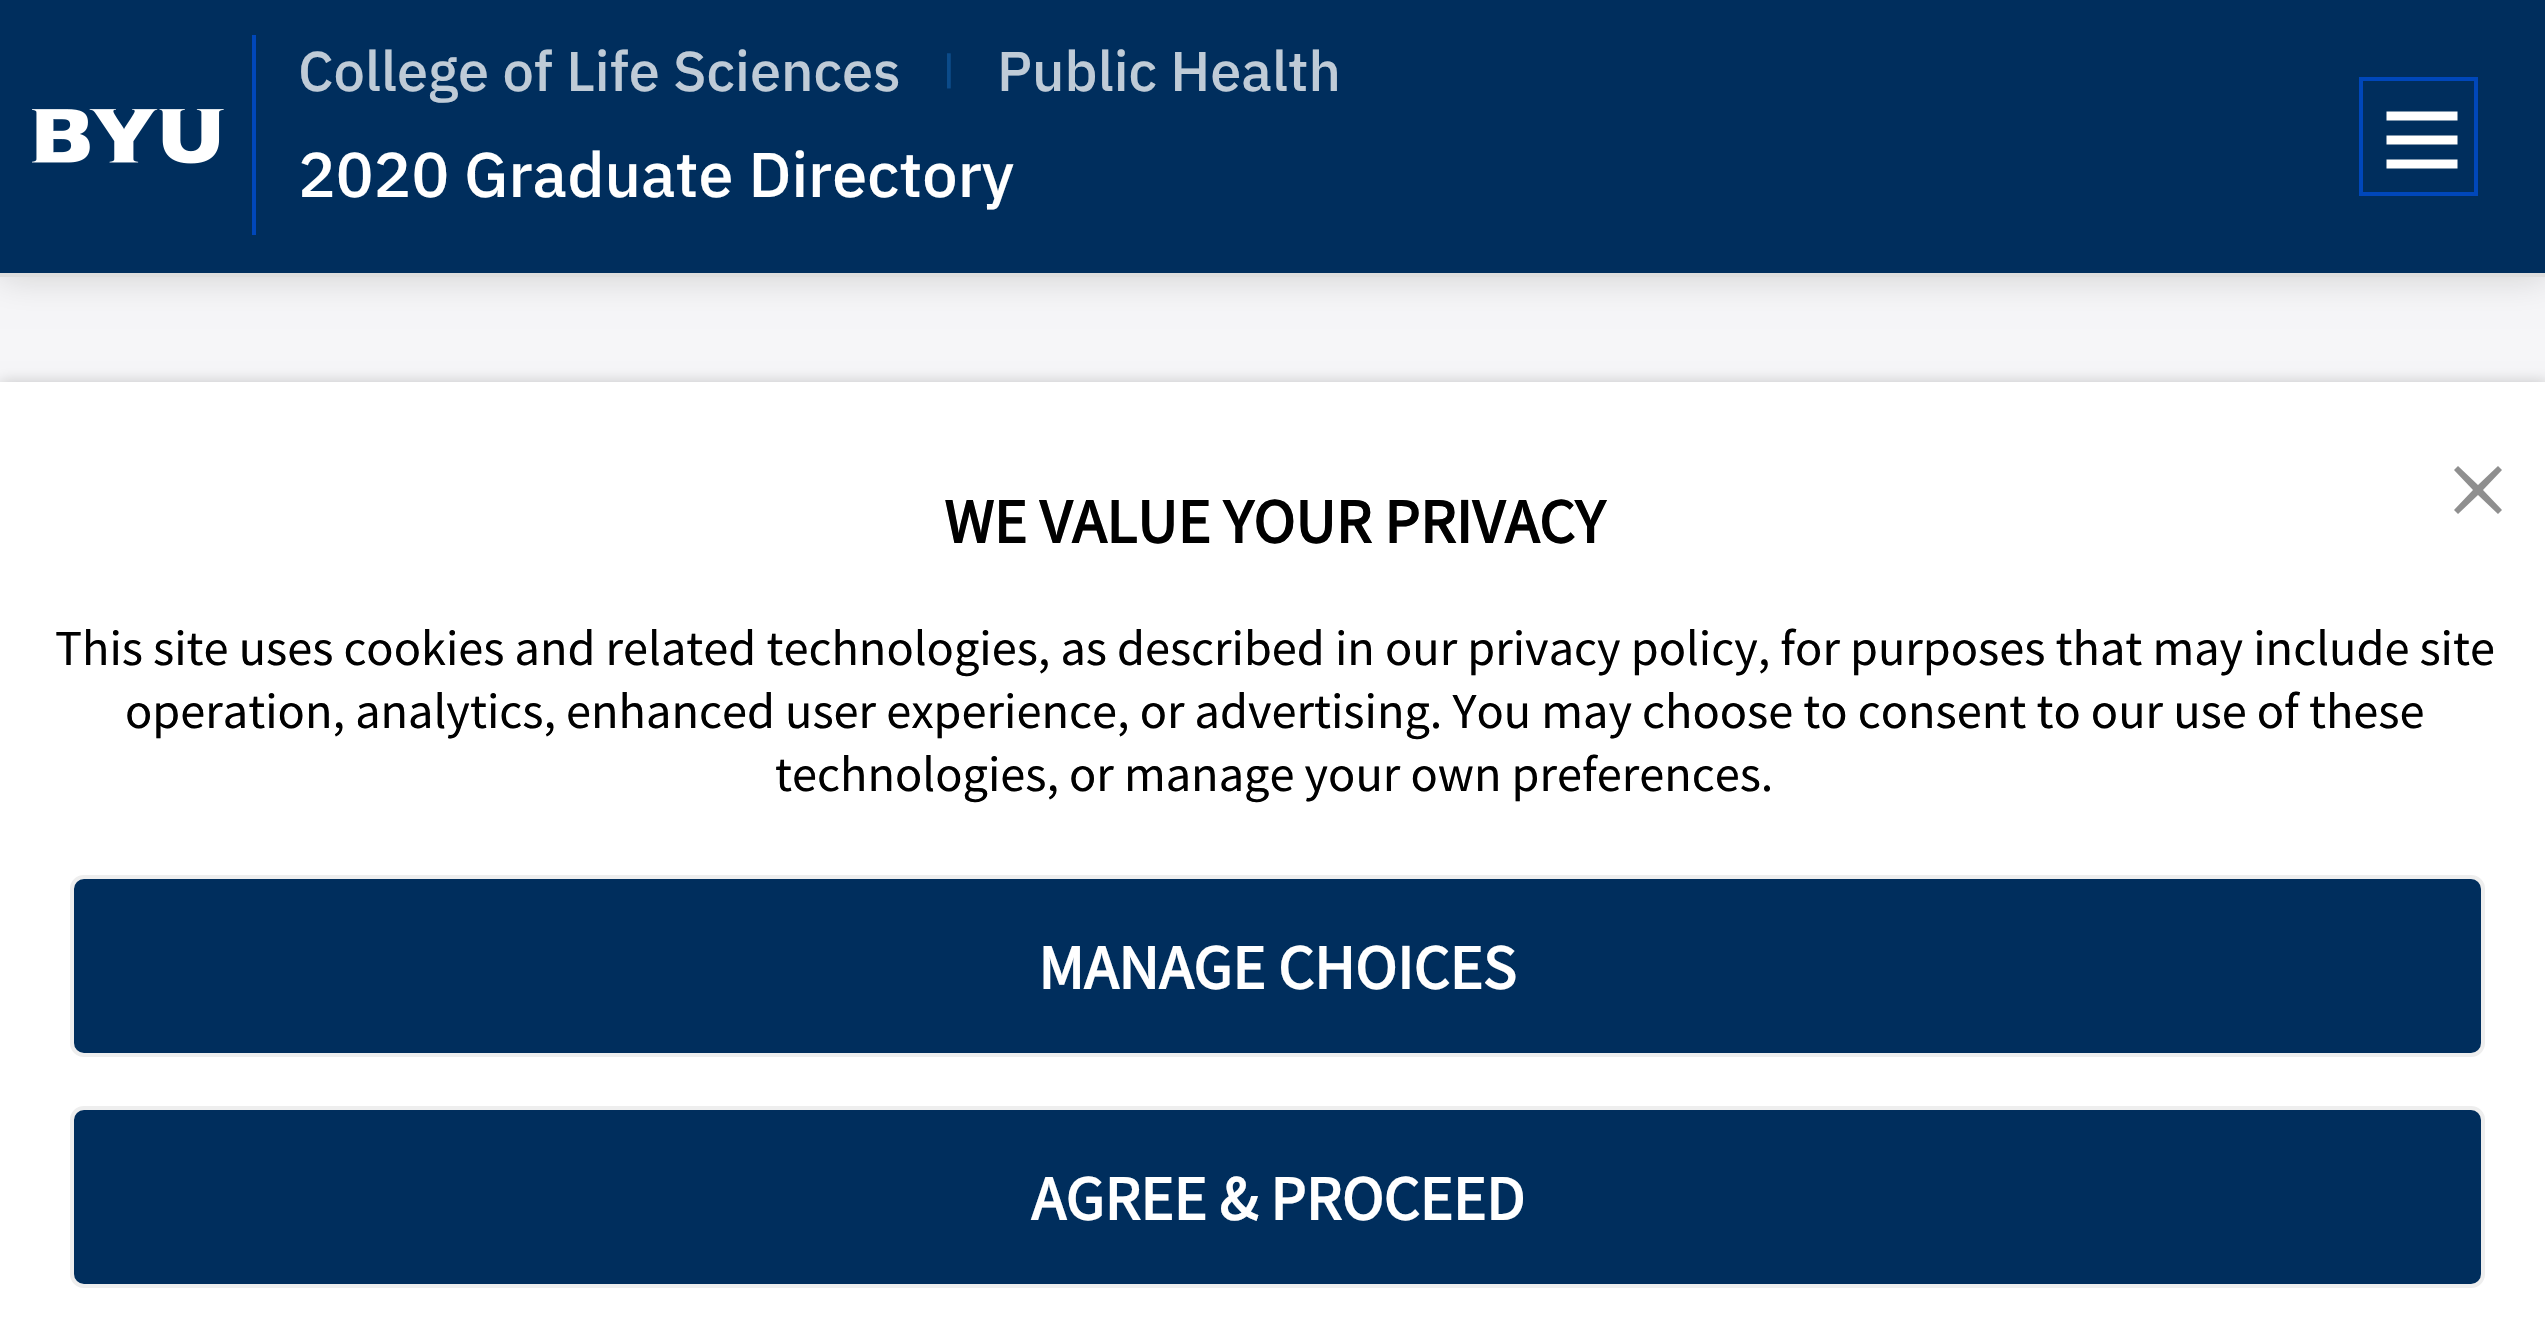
void draw(SkCanvas* canvas) {
  SkPaint paint;
  paint.setAntiAlias(true);
  auto face = [&](const char* family, int weight, float size, bool italic = false) {
    SkFontStyle style(weight, SkFontStyle::kNormal_Width,
      italic ? SkFontStyle::kItalic_Slant : SkFontStyle::kUpright_Slant);
    SkFont result(fontMgr->matchFamilyStyle(family, style), size);
    result.setSubpixel(true);
    return result;
  };
  auto paste = [&](const char* path, float x, float y, float w, float h) {
    auto image = SkImages::DeferredFromEncodedData(SkData::MakeFromFileName(path));
    canvas->drawImageRect(image, SkRect::MakeXYWH(x, y, w, h), SkSamplingOptions());
  };
  auto shape = [&](const char* data, bool evenOdd = false) {
    SkPath result = *SkParsePath::FromSVGString(data);
    if (evenOdd) result.setFillType(SkPathFillType::kEvenOdd);
    return result;
  };
  canvas->clear(0xfff6f6f8);
  paint.setColor(0x29000000);
  paint.setMaskFilter(SkMaskFilter::MakeBlur(kNormal_SkBlurStyle, 17.5f));
  canvas->drawRect(SkRect::MakeXYWH(0, 0, 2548, 277), paint);
  paint.setMaskFilter(nullptr);
  paint.setColor(0xffdddddd);
  canvas->drawRect(SkRect::MakeXYWH(0, 273, 2545, 4), paint);
  paint.setColor(0xff002e5d);
  canvas->drawRect(SkRect::MakeXYWH(0, 0, 2545, 273), paint);
  paste("img/1.png", 32, 109, 192, 55);
  paint.setStroke(true);
  paint.setStrokeWidth(4);
  paint.setColor(0xff0047ba);
  canvas->drawRect(SkRect::MakeXYWH(2361, 79, 115, 115), paint);
  paint.setStrokeWidth(8.9f);
  paint.setColor(0xffffffff);
  canvas->drawPath(shape("M2386.5 116H2457.5M2386.5 140H2457.5M2386.5 164H2457.5"), paint);
  paint.setStroke(false);
  paint.setColor(0xff0047ba);
  canvas->drawRect(SkRect::MakeXYWH(252, 35, 4, 200), paint);
  paint.setColor(0x33000000);
  paint.setMaskFilter(SkMaskFilter::MakeBlur(kNormal_SkBlurStyle, 7));
  canvas->drawRect(SkRect::MakeXYWH(0, 382, 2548, 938), paint);
  paint.setMaskFilter(nullptr);
  paint.setColor(0xffffffff);
  canvas->drawRect(SkRect::MakeXYWH(0, 382, 2545, 936), paint);
  paint.setColor(0xff8f8f8f);
  canvas->drawPath(shape("M2502 470L2483 490L2502 510L2498 514L2478 495L2458 514L2454 510L2473 490L2454 470L2458 466L2478 485L2498 466Z", true), paint);
  paint.setColor(0xff002e5d);
  canvas->drawRoundRect(SkRect::MakeXYWH(72, 877, 2411, 178), 12, 12, paint);
  paint.setStroke(true);
  paint.setStrokeWidth(4);
  paint.setColor(0xffeeeeee);
  canvas->drawRoundRect(SkRect::MakeXYWH(72, 877, 2411, 178), 12, 12, paint);
  paint.setStroke(false);
  paint.setColor(0xff002e5d);
  canvas->drawRoundRect(SkRect::MakeXYWH(72, 1108, 2411, 178), 12, 12, paint);
  paint.setStroke(true);
  paint.setColor(0xffeeeeee);
  canvas->drawRoundRect(SkRect::MakeXYWH(72, 1108, 2411, 178), 12, 12, paint);
  auto f0 = face("IBM Plex Sans", 500, 56);
  paint.setStroke(false);
  paint.setColor(0xffbfcbd7);
  canvas->drawString("College of Life Sciences", 298, 91, f0, paint);
  auto f1 = face("IBM Plex Sans", 500, 39);
  paint.setColor(0xff0b4b8a);
  canvas->drawString("|", 942, 83, f1, paint);
  paint.setColor(0xffbfcbd7);
  canvas->drawString("Public Health", 997, 91, f0, paint);
  auto f2 = face("IBM Plex Sans", 500, 63);
  paint.setColor(0xffffffff);
  canvas->drawString("2020 Graduate Directory", 298, 197, f2, paint);
  auto f3 = face("Source Sans Pro", 700, 63);
  paint.setColor(0xff000000);
  canvas->drawString("WE VALUE YOUR PRIVACY", 944, 543, f3, paint);
  auto f4 = face("Source Sans Pro", 400, 50.4f);
  {
    const struct { const char* s; float x, y; } items[] = {
      {"This site uses cookies and related technologies, as described in our privacy policy, for purposes that may include site", 55, 665},
      {"operation, analytics, enhanced user experience, or advertising. You may choose to consent to our use of these", 125, 728},
      {"technologies, or manage your own preferences.", 775, 791},
    };
    for (auto [s, x, y] : items) {
      canvas->drawString(s, x, y, f4, paint);
    }
  }
  paint.setColor(0xffffffff);
  canvas->drawString("MANAGE CHOICES", 1038, 989, f3, paint);
  canvas->drawString("AGREE & PROCEED", 1031, 1220, f3, paint);
}
